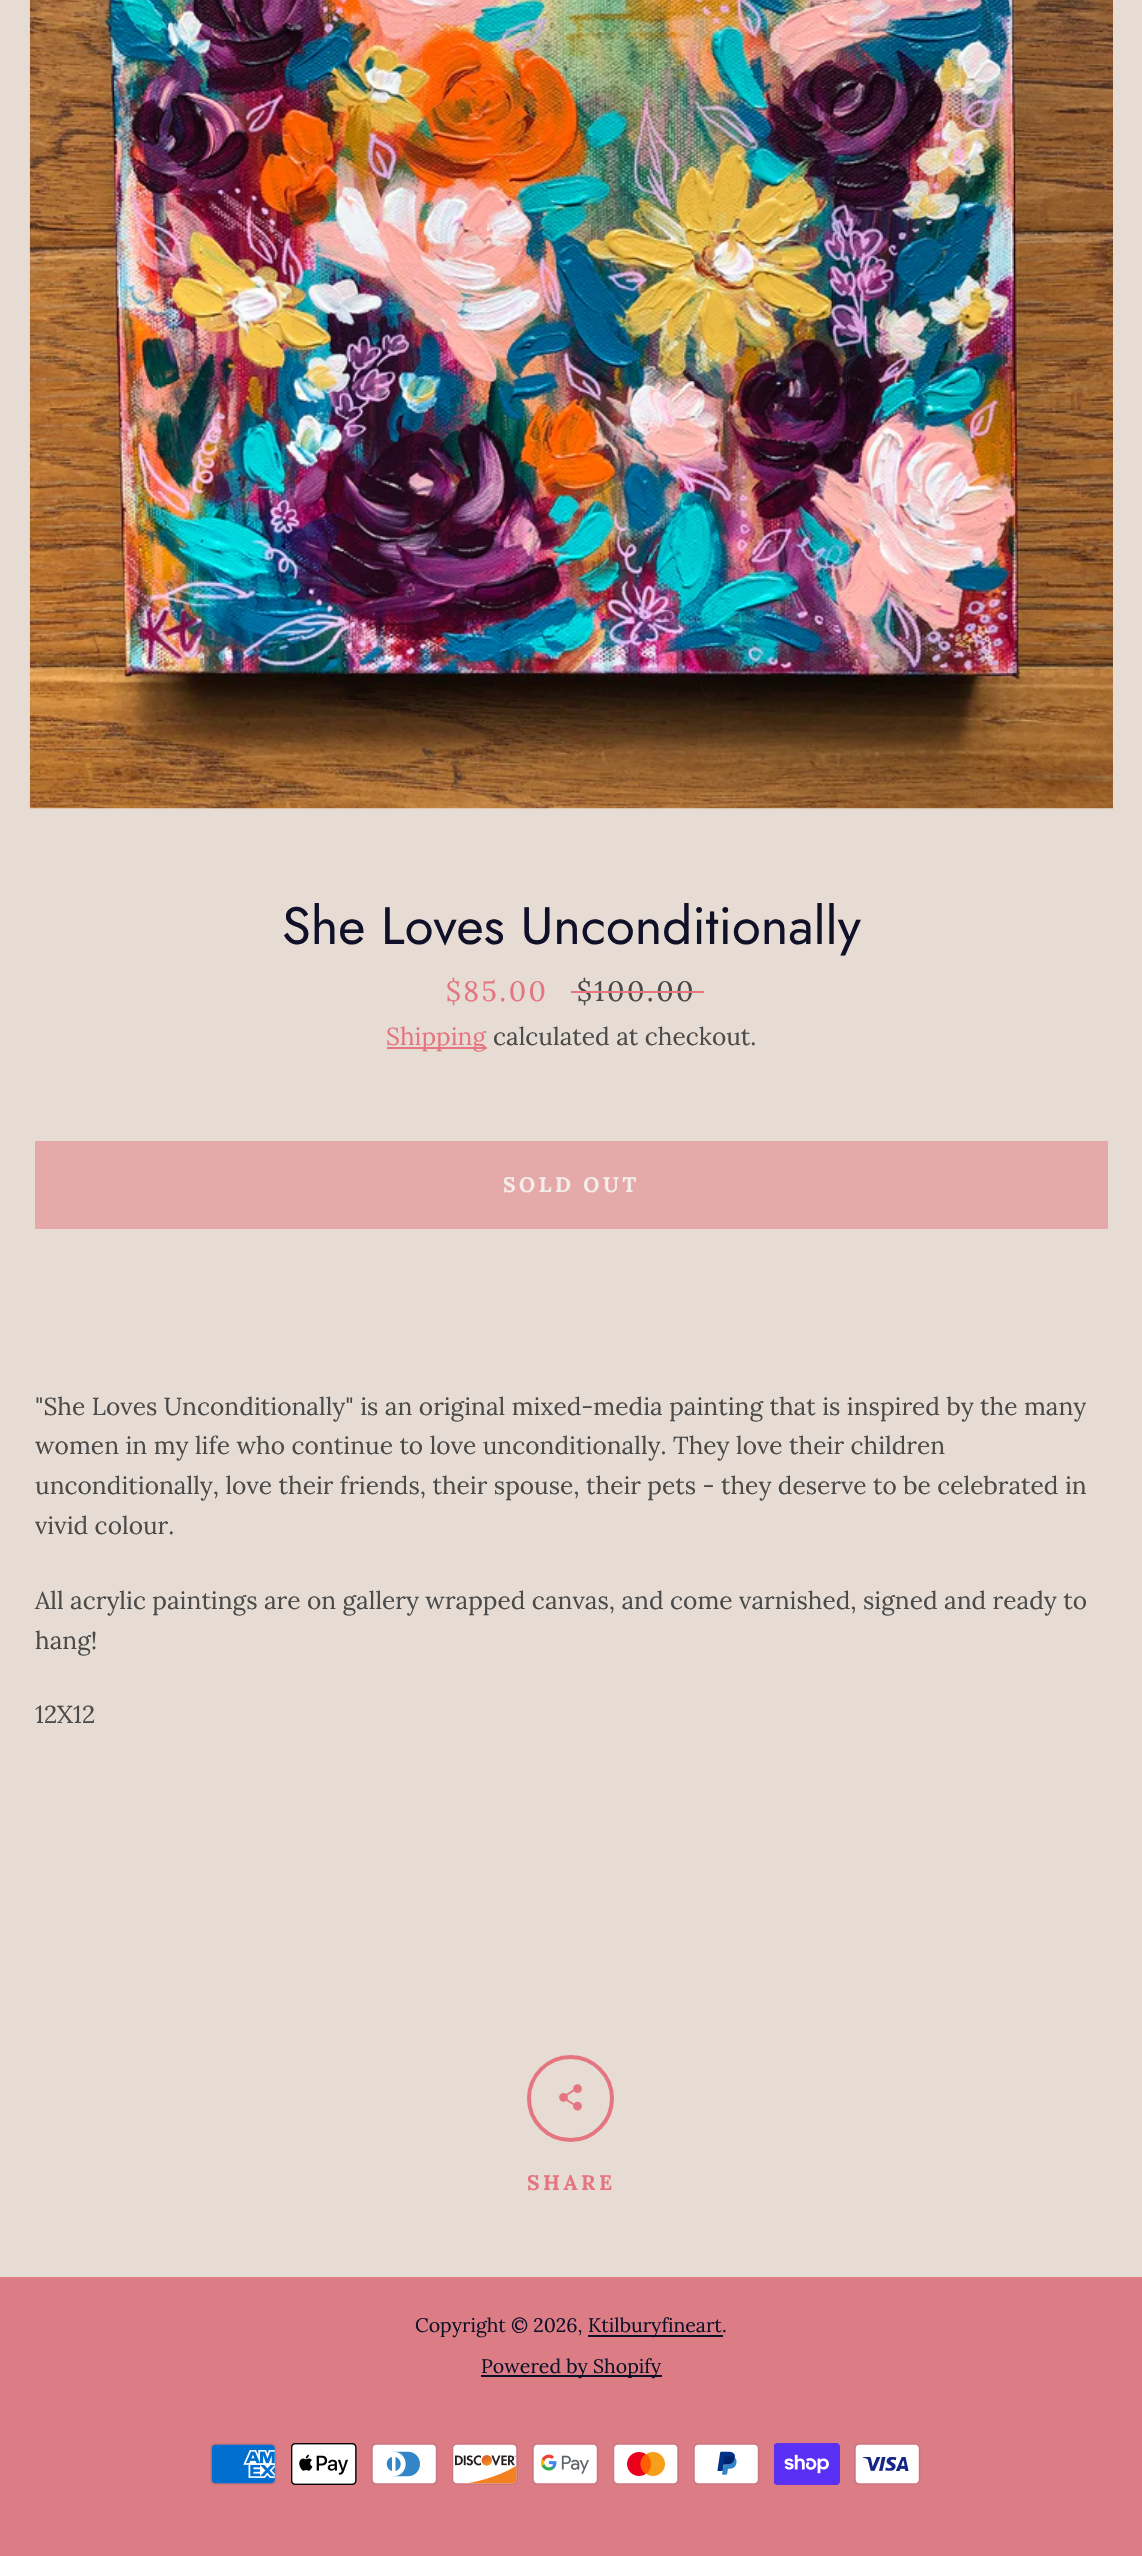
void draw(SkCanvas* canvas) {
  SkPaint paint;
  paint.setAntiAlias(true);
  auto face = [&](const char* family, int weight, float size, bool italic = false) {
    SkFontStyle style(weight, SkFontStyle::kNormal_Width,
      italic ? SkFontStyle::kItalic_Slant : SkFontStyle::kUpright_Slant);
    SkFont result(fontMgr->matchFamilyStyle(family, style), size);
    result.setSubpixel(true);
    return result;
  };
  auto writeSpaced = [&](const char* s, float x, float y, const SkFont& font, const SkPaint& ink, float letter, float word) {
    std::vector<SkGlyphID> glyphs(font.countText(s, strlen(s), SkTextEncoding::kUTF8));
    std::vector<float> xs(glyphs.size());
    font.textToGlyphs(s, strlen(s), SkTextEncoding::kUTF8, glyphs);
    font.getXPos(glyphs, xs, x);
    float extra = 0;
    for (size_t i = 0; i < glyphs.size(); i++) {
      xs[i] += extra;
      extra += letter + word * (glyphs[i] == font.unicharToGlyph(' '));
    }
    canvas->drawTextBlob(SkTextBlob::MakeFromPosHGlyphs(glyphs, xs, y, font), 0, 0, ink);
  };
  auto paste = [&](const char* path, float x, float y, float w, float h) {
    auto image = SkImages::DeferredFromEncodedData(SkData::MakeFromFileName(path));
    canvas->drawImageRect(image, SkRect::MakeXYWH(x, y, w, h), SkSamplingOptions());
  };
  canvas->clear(0xffdc7d86);
  paint.setColor(0xffe6dcd3);
  canvas->drawRect(SkRect::MakeXYWH(0, 0, 1142, 2277), paint);
  paste("img/1.png", 29, 0, 1084, 809);
  paint.setColor(0xffe57580);
  canvas->drawRect(SkRect::MakeXYWH(387, 1047, 100, 2), paint);
  paint.setColor(0xffe6a9aa);
  canvas->drawRect(SkRect::MakeXYWH(35, 1141, 1073, 88), paint);
  paint.setStroke(true);
  paint.setStrokeWidth(4);
  paint.setColor(0xffe57580);
  canvas->drawCircle(570.5f, 2098.5f, 41.5f, paint);
  paste("img/2.png", 559, 2084, 23, 27);
  paint.setStroke(false);
  paint.setColor(0xff101129);
  canvas->drawRect(SkRect::MakeXYWH(588, 2335, 135, 2), paint);
  canvas->drawRect(SkRect::MakeXYWH(481, 2375, 181, 2), paint);
  paste("img/3.png", 210, 2443, 67, 42);
  paste("img/4.png", 291, 2443, 66, 42);
  paste("img/5.png", 371, 2443, 67, 42);
  paste("img/6.png", 452, 2443, 66, 42);
  paste("img/7.png", 532, 2443, 67, 42);
  paste("img/8.png", 613, 2443, 66, 42);
  paste("img/9.png", 693, 2443, 67, 42);
  paste("img/10.png", 774, 2443, 66, 42);
  paste("img/11.png", 854, 2443, 67, 42);
  auto f0 = face("Jost", 400, 52.5f);
  canvas->drawString("She Loves Unconditionally", 282, 944, f0, paint);
  auto f1 = face("Lora", 400, 28);
  paint.setColor(0xffe57580);
  writeSpaced("$85.00", 446, 1001, f1, paint, 2.5f, 0);
  paint.setColor(0xff4a4a4a);
  writeSpaced("$100.00", 577, 1001, f1, paint, 2.5f, 0);
  paint.setColor(0xffe57580);
  canvas->drawRect(SkRect::MakeXYWH(571, 991, 133, 2), paint);
  auto f2 = face("Lora", 400, 24.5f);
  canvas->drawString("Shipping", 386, 1045, f2, paint);
  paint.setColor(0xff4a4a4a);
  canvas->drawString("calculated at checkout.", 493, 1045, f2, paint);
  auto f3 = face("Lora", 700, 21);
  paint.setColor(0xfff3eee9);
  writeSpaced("SOLD OUT", 503, 1192, f3, paint, 3.5f, 0);
  paint.setColor(0xff4a4a4a);
  {
    const struct { const char* s; float x, y; } items[] = {
      {"\"She Loves Unconditionally\" is an original mixed-media painting that is inspired by the many", 35, 1415},
      {"women in my life who continue to love unconditionally. They love their children", 35, 1454},
      {"unconditionally, love their friends, their spouse, their pets - they deserve to be celebrated in", 35, 1494},
      {"vivid colour.", 35, 1534},
      {"All acrylic paintings are on gallery wrapped canvas, and come varnished, signed and ready to", 35, 1609},
      {"hang!", 35, 1649},
      {"12X12", 35, 1723},
    };
    for (auto [s, x, y] : items) {
      canvas->drawString(s, x, y, f2, paint);
    }
  }
  paint.setColor(0xffe57580);
  writeSpaced("SHARE", 527, 2190, f3, paint, 3.5f, 0);
  auto f4 = face("Lora", 400, 19.5f);
  paint.setColor(0xff101129);
  {
    const struct { const char* s; float x, y; } items[] = {
      {"Copyright © 2026,", 415, 2332},
      {"Ktilburyfineart.", 588, 2332},
      {"Powered by Shopify", 481, 2373},
    };
    for (auto [s, x, y] : items) {
      canvas->drawString(s, x, y, f4, paint);
    }
  }
}
